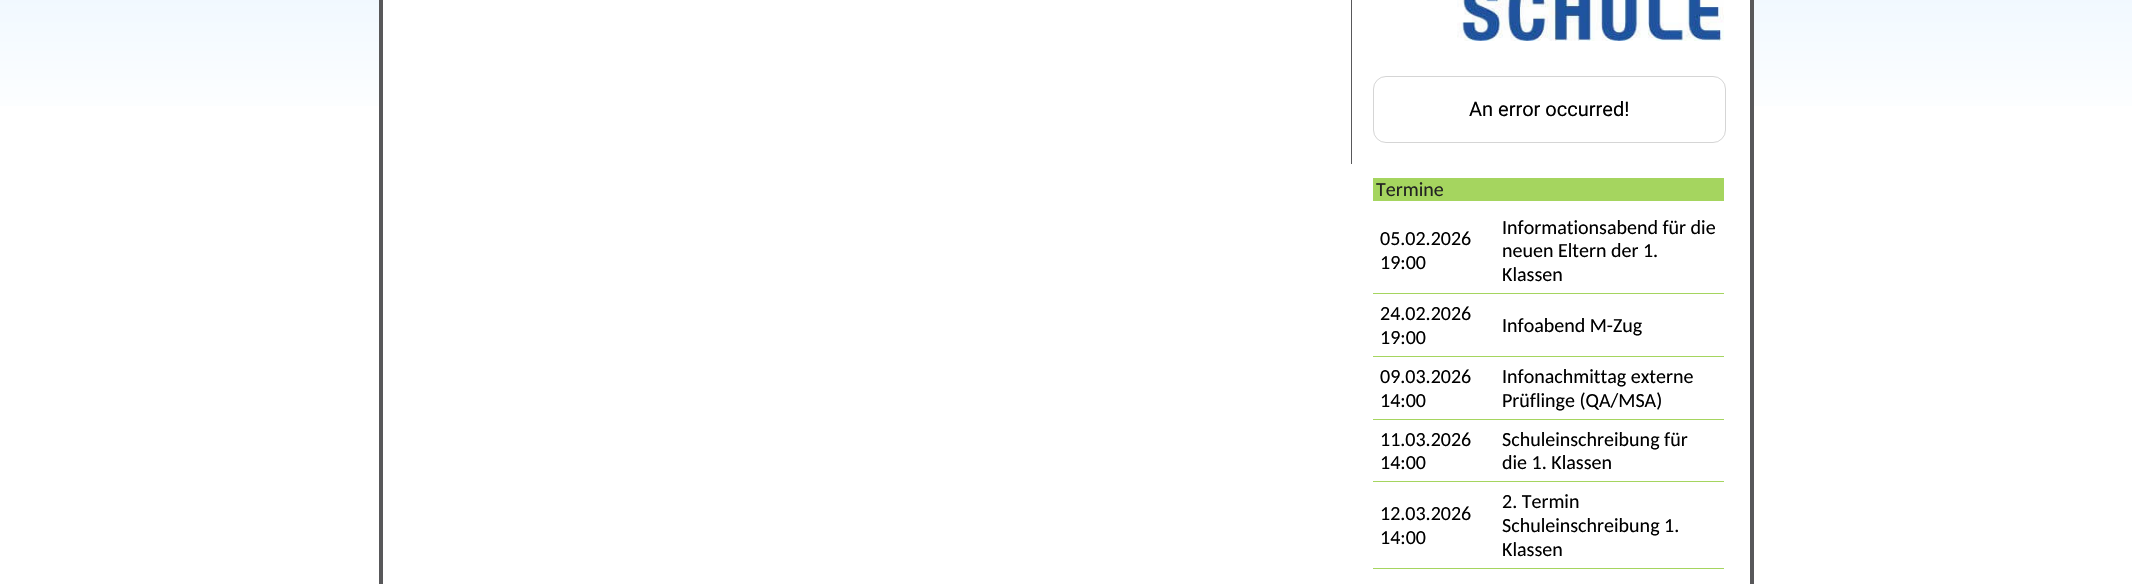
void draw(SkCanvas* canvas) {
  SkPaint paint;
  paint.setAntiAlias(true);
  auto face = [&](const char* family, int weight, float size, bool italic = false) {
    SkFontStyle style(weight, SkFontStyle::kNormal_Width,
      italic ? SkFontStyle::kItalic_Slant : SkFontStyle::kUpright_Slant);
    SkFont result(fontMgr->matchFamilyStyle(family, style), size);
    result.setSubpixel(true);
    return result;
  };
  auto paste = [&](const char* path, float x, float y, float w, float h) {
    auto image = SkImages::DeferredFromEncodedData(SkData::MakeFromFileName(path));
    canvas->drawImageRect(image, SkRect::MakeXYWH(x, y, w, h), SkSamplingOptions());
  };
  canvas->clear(0xffffffff);
  {
    const SkColor colors[] = {0xff89c7ff, 0xffffffff};
    const float stops[] = {0, 0.58f};
    const SkPoint ends[] = {{1066, -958}, {1066, 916}};
    paint.setShader(SkGradientShader::MakeLinear(ends, colors, stops, 2, SkTileMode::kClamp));
    paint.setAlpha(255);
  }
  canvas->drawRect(SkRect::MakeXYWH(0, 0, 2132, 106), paint);
  paint.setShader(nullptr);
  paint.setColor(0xffffffff);
  canvas->drawRect(SkRect::MakeXYWH(383, 0, 1367, 106), paint);
  paint.setStroke(true);
  paint.setStrokeWidth(4);
  paint.setColor(0xff58585a);
  canvas->drawRect(SkRect::MakeXYWH(381, -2, 1371, 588), paint);
  paint.setStroke(false);
  canvas->drawRect(SkRect::MakeXYWH(1351, 0, 1, 164), paint);
  paste("img/1.png", 1457, 0, 267, 41);
  paint.setStroke(true);
  paint.setStrokeWidth(1);
  paint.setColor(0xffd5d5d5);
  canvas->drawRoundRect(SkRect::MakeXYWH(1373.5f, 76.5f, 352, 66), 12.5f, 12.5f, paint);
  paint.setStroke(false);
  {
    const struct { float x, y, w, h; SkColor color; } items[] = {
      {1373, 178, 351, 23, 0xffa5d55f},
      {1373, 293, 351, 1, 0xffa5d55f},
      {1373, 356, 351, 1, 0xffa5d55f},
      {1373, 419, 351, 1, 0xffa5d55f},
      {1373, 481, 351, 1, 0xffa5d55f},
      {1373, 568, 351, 1, 0xffa5d55f},
    };
    for (auto [x, y, w, h, color] : items) {
      paint.setColor(color);
      canvas->drawRect(SkRect::MakeXYWH(x, y, w, h), paint);
    }
  }
  auto f0 = face("Roboto", 400, 20);
  paint.setColor(0xff000000);
  canvas->drawString("An error occurred!", 1469, 116, f0, paint);
  auto f1 = face("Carlito", 400, 20);
  paint.setColor(0xff222222);
  canvas->drawString("Termine", 1376, 196, f1, paint);
  paint.setColor(0xff000000);
  {
    const struct { const char* s; float x, y; } items[] = {
      {"05.02.2026", 1380, 245},
      {"19:00", 1380, 269},
      {"Informationsabend für die", 1502, 234},
      {"neuen Eltern der 1.", 1502, 257},
      {"Klassen", 1502, 281},
      {"24.02.2026", 1380, 320},
      {"19:00", 1380, 344},
      {"Infoabend M-Zug", 1502, 332},
      {"09.03.2026", 1380, 383},
      {"14:00", 1380, 407},
      {"Infonachmittag externe", 1502, 383},
      {"Prüflinge (QA/MSA)", 1502, 407},
      {"11.03.2026", 1380, 446},
      {"14:00", 1380, 469},
      {"Schuleinschreibung für", 1502, 446},
      {"die 1. Klassen", 1502, 469},
      {"12.03.2026", 1380, 520},
      {"14:00", 1380, 544},
      {"2. Termin", 1502, 508},
      {"Schuleinschreibung 1.", 1502, 532},
      {"Klassen", 1502, 556},
    };
    for (auto [s, x, y] : items) {
      canvas->drawString(s, x, y, f1, paint);
    }
  }
}
